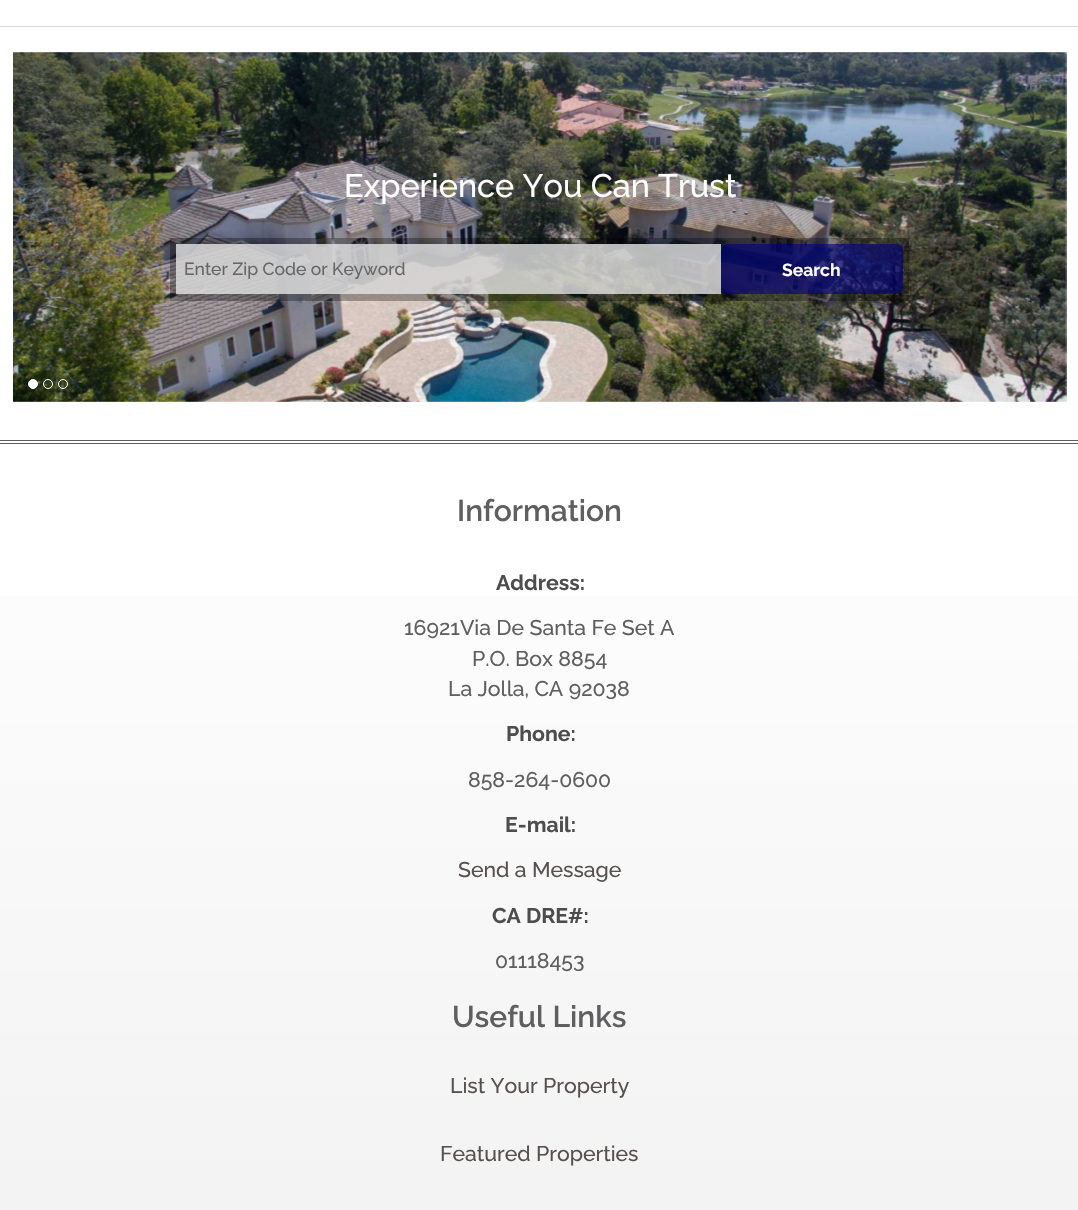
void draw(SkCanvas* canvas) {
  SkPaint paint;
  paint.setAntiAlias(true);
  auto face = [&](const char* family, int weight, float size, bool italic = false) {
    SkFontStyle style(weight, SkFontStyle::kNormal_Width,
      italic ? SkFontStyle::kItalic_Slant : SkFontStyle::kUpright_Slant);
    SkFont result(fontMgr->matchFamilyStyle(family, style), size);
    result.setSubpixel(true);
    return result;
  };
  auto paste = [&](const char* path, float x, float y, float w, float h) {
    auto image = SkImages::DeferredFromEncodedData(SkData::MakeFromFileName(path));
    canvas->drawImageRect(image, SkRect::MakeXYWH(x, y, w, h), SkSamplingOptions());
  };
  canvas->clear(0xffffffff);
  paint.setColor(0xffd9d9d9);
  canvas->drawRect(SkRect::MakeXYWH(0, 26, 1078, 1), paint);
  paste("img/1.png", 13, 52, 1054, 350);
  paint.setColor(0xffffffff);
  canvas->drawCircle(33, 384, 4.5f, paint);
  paint.setStroke(true);
  paint.setStrokeWidth(1);
  canvas->drawCircle(33, 384, 4.5f, paint);
  canvas->drawCircle(48, 384, 4.5f, paint);
  canvas->drawCircle(63, 384, 4.5f, paint);
  paint.setStroke(false);
  paint.setColor(0x4d000000);
  canvas->drawRect(SkRect::MakeXYWH(170, 238, 739, 63), paint);
  paint.setColor(0xcce4e4e4);
  canvas->drawRect(SkRect::MakeXYWH(176, 244, 545, 50), paint);
  paint.setColor(0x99000080);
  canvas->drawRoundRect(SkRect::MakeXYWH(721, 244, 182, 50), 6, 6, paint);
  {
    const SkColor colors[] = {0xffe6e6e6, 0xffffffff};
    const float stops[] = {0, 1};
    const SkPoint ends[] = {{539, 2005}, {539, 440}};
    paint.setShader(SkGradientShader::MakeLinear(ends, colors, stops, 2, SkTileMode::kClamp));
    paint.setAlpha(255);
  }
  canvas->drawRect(SkRect::MakeXYWH(0, 596, 1078, 614), paint);
  paint.setShader(nullptr);
  paint.setColor(0xff5f5e5e);
  canvas->drawRect(SkRect::MakeXYWH(0, 440, 1078, 1), paint);
  canvas->drawRect(SkRect::MakeXYWH(0, 443, 1078, 1), paint);
  auto f0 = face("Raleway", 500, 32.4f);
  paint.setColor(0xffffffff);
  canvas->drawString("Experience You Can Trust", 344, 197, f0, paint);
  auto f1 = face("Raleway", 500, 17.5f);
  paint.setColor(0xff666666);
  canvas->drawString("Enter Zip Code or Keyword", 184, 275, f1, paint);
  auto f2 = face("Raleway", 700, 17.5f);
  paint.setColor(0xffffffff);
  canvas->drawString("Search", 782, 276, f2, paint);
  auto f3 = face("Raleway", 600, 30);
  paint.setColor(0xff5f5f61);
  canvas->drawString("Information", 457, 521, f3, paint);
  auto f4 = face("Raleway", 700, 21.25f);
  paint.setColor(0xff4d4d4d);
  canvas->drawString("Address:", 496, 590, f4, paint);
  auto f5 = face("Raleway", 500, 21.25f);
  paint.setColor(0xff5f5f61);
  {
    const struct { const char* s; float x, y; } items[] = {
      {"16921Via De Santa Fe Set A", 404, 635},
      {"P.O. Box 8854", 472, 666},
      {"La Jolla, CA 92038", 448, 696},
    };
    for (auto [s, x, y] : items) {
      canvas->drawString(s, x, y, f5, paint);
    }
  }
  paint.setColor(0xff4d4d4d);
  canvas->drawString("Phone:", 506, 741, f4, paint);
  paint.setColor(0xff5f5f61);
  canvas->drawString("858-264-0600", 468, 787, f5, paint);
  paint.setColor(0xff4d4d4d);
  canvas->drawString("E-mail:", 505, 832, f4, paint);
  paint.setColor(0xff584f4f);
  canvas->drawString("Send a Message", 458, 877, f5, paint);
  paint.setColor(0xff4d4d4d);
  canvas->drawString("CA DRE#:", 492, 923, f4, paint);
  paint.setColor(0xff5f5f61);
  canvas->drawString("01118453", 495, 968, f5, paint);
  canvas->drawString("Useful Links", 452, 1027, f3, paint);
  paint.setColor(0xff584f4f);
  canvas->drawString("List Your Property", 450, 1093, f5, paint);
  canvas->drawString("Featured Properties", 440, 1161, f5, paint);
}
